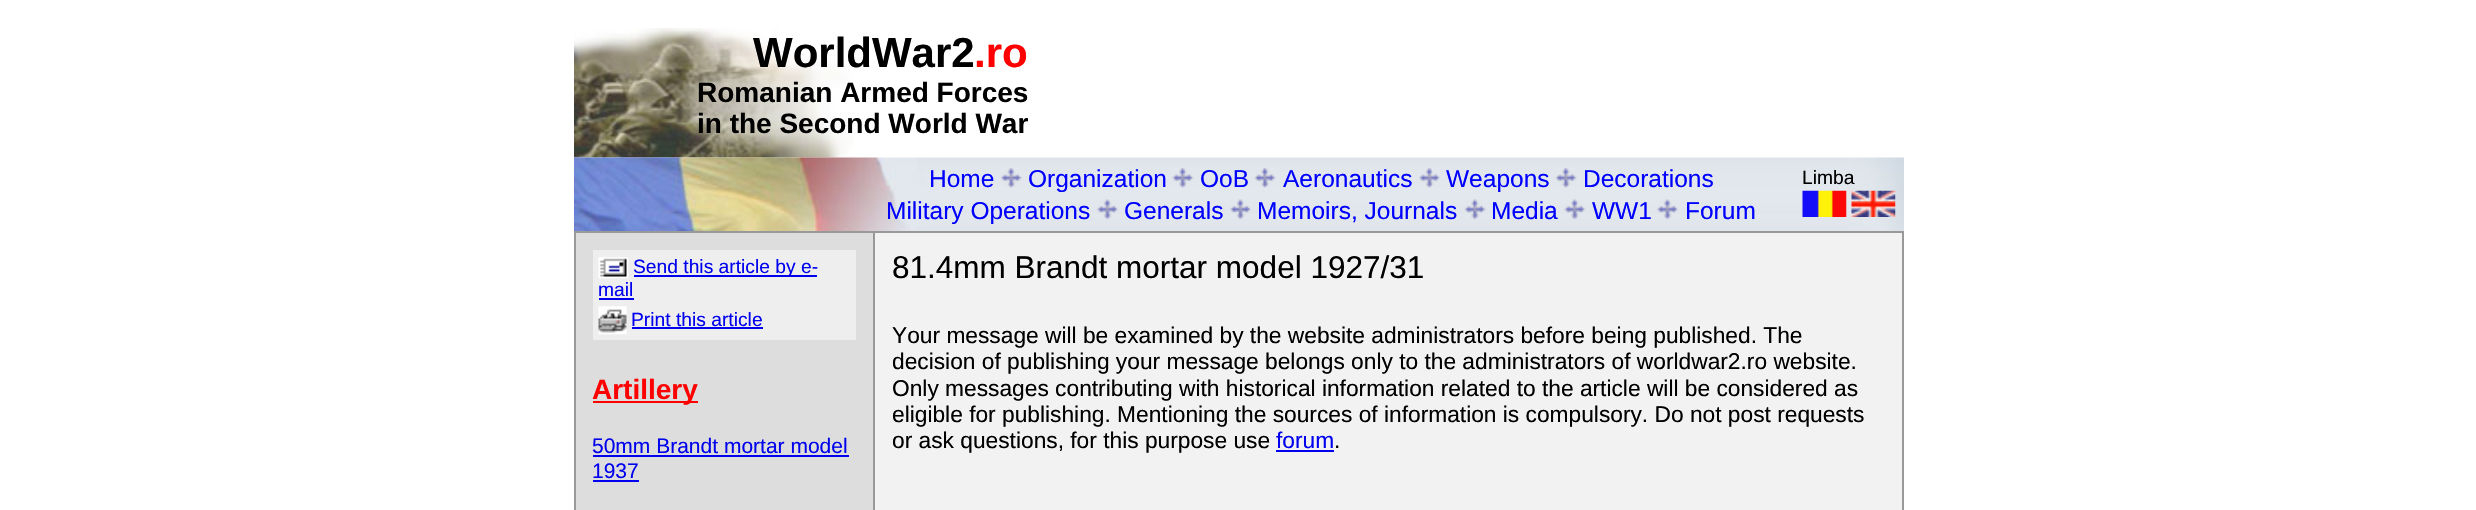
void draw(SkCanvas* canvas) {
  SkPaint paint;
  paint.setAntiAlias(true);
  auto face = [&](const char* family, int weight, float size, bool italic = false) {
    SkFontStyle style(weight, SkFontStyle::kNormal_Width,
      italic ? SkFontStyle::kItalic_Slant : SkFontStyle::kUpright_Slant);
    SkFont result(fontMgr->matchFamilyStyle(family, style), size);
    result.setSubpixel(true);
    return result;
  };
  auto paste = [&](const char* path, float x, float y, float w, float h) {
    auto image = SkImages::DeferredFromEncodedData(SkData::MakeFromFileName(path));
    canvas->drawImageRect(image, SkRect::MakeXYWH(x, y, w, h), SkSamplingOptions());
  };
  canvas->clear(0xffffffff);
  paste("img/1.png", 574, 28, 280, 130);
  paste("img/2.png", 574, 157, 1330, 74);
  paste("img/3.png", 1001, 168, 21, 20);
  paste("img/4.png", 1172, 168, 22, 20);
  paste("img/5.png", 1254, 168, 22, 20);
  paste("img/6.png", 1419, 168, 21, 20);
  paste("img/5.png", 1555, 168, 22, 20);
  paste("img/7.png", 1097, 199, 21, 20);
  paste("img/7.png", 1230, 199, 21, 20);
  paste("img/8.png", 1464, 199, 22, 20);
  paste("img/9.png", 1564, 199, 22, 20);
  paste("img/7.png", 1657, 199, 21, 20);
  paste("img/10.png", 1802, 190, 45, 27);
  paste("img/11.png", 1851, 190, 45, 27);
  {
    const struct { float x, y, w, h; SkColor color; } items[] = {
      {574, 231, 1330, 2, 0xff999999},
      {574, 233, 2, 277, 0xff999999},
      {576, 233, 297, 277, 0xffdddddd},
      {593, 250, 263, 90, 0xffeeeeee},
    };
    for (auto [x, y, w, h, color] : items) {
      paint.setColor(color);
      canvas->drawRect(SkRect::MakeXYWH(x, y, w, h), paint);
    }
  }
  paste("img/12.png", 598, 257, 31, 22);
  paint.setColor(0xff0000ee);
  canvas->drawRect(SkRect::MakeXYWH(634, 275, 183, 2), paint);
  canvas->drawRect(SkRect::MakeXYWH(599, 298, 35, 2), paint);
  paste("img/13.png", 598, 306, 29, 29);
  {
    const struct { float x, y, w, h; SkColor color; } items[] = {
      {632, 327, 131, 2, 0xff0000ee},
      {593, 401, 105, 2, 0xffff0000},
      {593, 455, 256, 2, 0xff0000ee},
      {593, 480, 46, 2, 0xff0000ee},
      {873, 233, 2, 277, 0xff999999},
      {875, 233, 1027, 277, 0xfff2f2f2},
      {1276, 450, 58, 2, 0xff0000ee},
      {1902, 233, 2, 277, 0xff999999},
    };
    for (auto [x, y, w, h, color] : items) {
      paint.setColor(color);
      canvas->drawRect(SkRect::MakeXYWH(x, y, w, h), paint);
    }
  }
  auto f0 = face("Liberation Sans", 700, 42);
  paint.setColor(0xff000000);
  canvas->drawString("WorldWar2", 753, 67, f0, paint);
  paint.setColor(0xffff0000);
  canvas->drawString(".ro", 974, 67, f0, paint);
  auto f1 = face("Liberation Sans", 700, 28);
  paint.setColor(0xff000000);
  canvas->drawString("Romanian Armed Forces", 697, 102, f1, paint);
  canvas->drawString("in the Second World War", 697, 133, f1, paint);
  auto f2 = face("Liberation Sans", 400, 24.5f);
  paint.setColor(0xff0000ff);
  {
    const struct { const char* s; float x, y; } items[] = {
      {"Home", 929, 187},
      {"Organization", 1028, 187},
      {"OoB", 1200, 187},
      {"Aeronautics", 1283, 187},
      {"Weapons", 1446, 187},
      {"Decorations", 1583, 187},
      {"Military Operations", 886, 219},
      {"Generals", 1124, 219},
      {"Memoirs, Journals", 1257, 219},
      {"Media", 1491, 219},
      {"WW1", 1592, 219},
      {"Forum", 1685, 219},
    };
    for (auto [s, x, y] : items) {
      canvas->drawString(s, x, y, f2, paint);
    }
  }
  auto f3 = face("Liberation Sans", 400, 19.25f);
  paint.setColor(0xff000000);
  canvas->drawString("Limba", 1802, 184, f3, paint);
  paint.setColor(0xff0000ee);
  {
    const struct { const char* s; float x, y; } items[] = {
      {"Send this article by e-", 633, 273},
      {"mail", 598, 296},
      {"Print this article", 631, 326},
    };
    for (auto [s, x, y] : items) {
      canvas->drawString(s, x, y, f3, paint);
    }
  }
  paint.setColor(0xffff0000);
  canvas->drawString("Artillery", 592, 399, f1, paint);
  auto f4 = face("Liberation Sans", 400, 21);
  paint.setColor(0xff0000ee);
  canvas->drawString("50mm Brandt mortar model", 592, 453, f4, paint);
  canvas->drawString("1937", 592, 478, f4, paint);
  auto f5 = face("Liberation Sans", 400, 31.5f);
  paint.setColor(0xff000000);
  canvas->drawString("81.4mm Brandt mortar model 1927/31", 892, 278, f5, paint);
  auto f6 = face("Liberation Sans", 400, 22.75f);
  {
    const struct { const char* s; float x, y; } items[] = {
      {"Your message will be examined by the website administrators before being published. The", 892, 343},
      {"decision of publishing your message belongs only to the administrators of worldwar2.ro website.", 892, 369},
      {"Only messages contributing with historical information related to the article will be considered as", 892, 396},
      {"eligible for publishing. Mentioning the sources of information is compulsory. Do not post requests", 892, 422},
      {"or ask questions, for this purpose use", 892, 448},
    };
    for (auto [s, x, y] : items) {
      canvas->drawString(s, x, y, f6, paint);
    }
  }
  paint.setColor(0xff0000ee);
  canvas->drawString("forum", 1276, 448, f6, paint);
  paint.setColor(0xff000000);
  canvas->drawString(".", 1334, 448, f6, paint);
}
